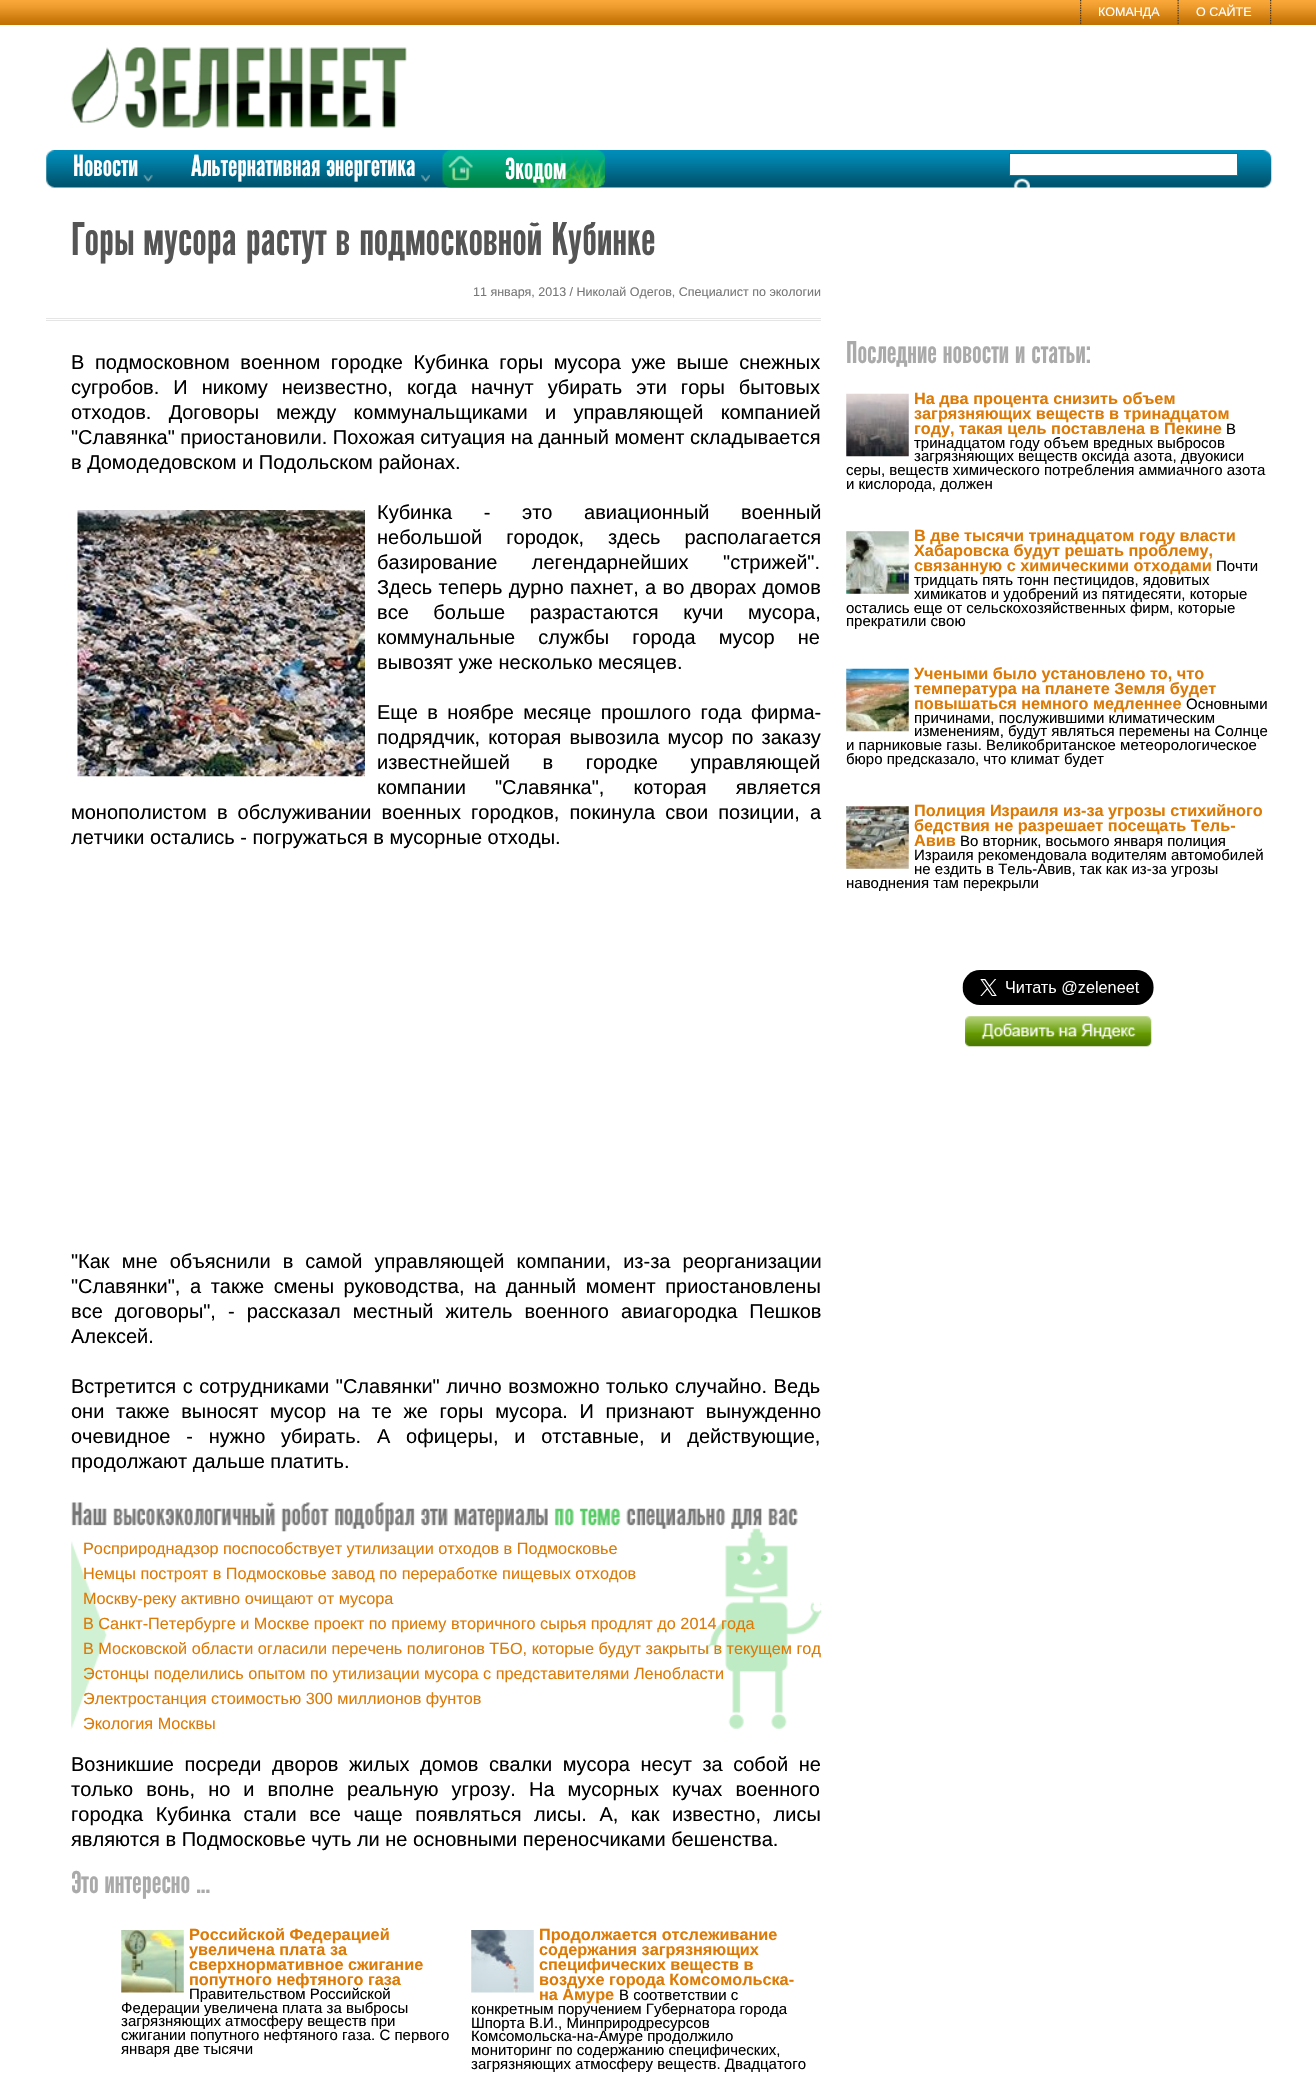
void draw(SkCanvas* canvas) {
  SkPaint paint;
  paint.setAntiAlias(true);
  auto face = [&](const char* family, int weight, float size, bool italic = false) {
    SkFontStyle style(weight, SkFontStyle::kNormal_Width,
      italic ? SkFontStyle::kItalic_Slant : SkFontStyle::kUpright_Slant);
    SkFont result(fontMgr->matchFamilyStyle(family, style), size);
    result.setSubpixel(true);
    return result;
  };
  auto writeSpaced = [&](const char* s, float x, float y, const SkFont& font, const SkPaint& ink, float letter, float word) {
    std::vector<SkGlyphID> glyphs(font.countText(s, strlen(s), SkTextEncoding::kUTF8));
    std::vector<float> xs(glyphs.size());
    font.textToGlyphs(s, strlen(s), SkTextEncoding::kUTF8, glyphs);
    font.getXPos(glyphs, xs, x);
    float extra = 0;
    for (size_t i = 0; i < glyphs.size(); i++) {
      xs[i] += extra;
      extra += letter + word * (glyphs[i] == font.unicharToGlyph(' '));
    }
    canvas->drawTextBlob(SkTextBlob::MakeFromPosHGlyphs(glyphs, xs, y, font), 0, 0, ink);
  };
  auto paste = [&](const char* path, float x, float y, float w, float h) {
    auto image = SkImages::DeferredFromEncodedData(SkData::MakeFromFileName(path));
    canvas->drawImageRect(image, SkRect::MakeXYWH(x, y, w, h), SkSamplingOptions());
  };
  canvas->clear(0xffffffff);
  paint.setColor(0xfff68e00);
  canvas->drawRect(SkRect::MakeXYWH(0, 0, 1316, 25), paint);
  paste("img/1.png", 0, 0, 1316, 25);
  paste("img/2.png", 1080, 0, 2, 25);
  paste("img/3.png", 1177, 0, 2, 25);
  paste("img/2.png", 1270, 0, 2, 25);
  paste("img/4.png", 71, 47, 336, 81);
  paste("img/5.png", 46, 150, 1226, 38);
  paste("img/6.png", 143, 174, 10, 8);
  paste("img/7.png", 421, 174, 9, 8);
  paste("img/8.png", 442, 150, 163, 38);
  paint.setColor(0xffffffff);
  canvas->drawRect(SkRect::MakeXYWH(1009.5f, 153.5f, 228, 22), paint);
  paint.setStroke(true);
  paint.setStrokeWidth(1);
  paint.setColor(0xff017ca4);
  canvas->drawRect(SkRect::MakeXYWH(1009.5f, 153.5f, 228, 22), paint);
  paste("img/9.png", 1013, 178, 17, 10);
  paint.setStroke(false);
  paint.setColor(0xffe5e5e5);
  canvas->drawRect(SkRect::MakeXYWH(46, 318, 775, 1), paint);
  canvas->drawRect(SkRect::MakeXYWH(46, 320, 775, 1), paint);
  paste("img/10.png", 77, 510, 288, 267);
  paste("img/11.png", 71, 1502, 751, 227);
  paste("img/12.png", 121, 1930, 63, 63);
  paste("img/13.png", 471, 1930, 63, 63);
  paste("img/14.png", 846, 393, 63, 64);
  paste("img/15.png", 846, 531, 63, 63);
  paste("img/16.png", 846, 668, 63, 64);
  paste("img/17.png", 846, 806, 63, 63);
  paste("img/18.png", 962, 970, 192, 35);
  paste("img/19.png", 965, 1016, 187, 31);
  auto f0 = face("Liberation Sans", 400, 12.5f);
  paint.setColor(0xffffffff);
  canvas->drawString("КОМАНДА", 1098, 16, f0, paint);
  canvas->drawString("О САЙТЕ", 1196, 16, f0, paint);
  auto f1 = face("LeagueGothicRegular", 400, 28.75f);
  {
    const struct { const char* s; float x, y; } items[] = {
      {"Новости", 73, 176},
      {"Альтернативная энергетика", 191, 176},
      {"Экодом", 505, 179},
    };
    for (auto [s, x, y] : items) {
      canvas->drawString(s, x, y, f1, paint);
    }
  }
  auto f2 = face("LeagueGothicRegular", 400, 45);
  paint.setColor(0xff555555);
  canvas->drawString("Горы мусора растут в подмосковной Кубинке", 71, 255, f2, paint);
  paint.setColor(0xff777777);
  canvas->drawString("11 января, 2013 / Николай Одегов, Специалист по экологии", 473, 296, f0, paint);
  auto f3 = face("Liberation Sans", 400, 20);
  paint.setColor(0xff000000);
  writeSpaced("В подмосковном военном городке Кубинка горы мусора уже выше снежных", 71, 369, f3, paint, 0, 5);
  writeSpaced("сугробов. И никому неизвестно, когда начнут убирать эти горы бытовых", 71, 394, f3, paint, 0, 8.5f);
  writeSpaced("отходов. Договоры между коммунальщиками и управляющей компанией", 71, 419, f3, paint, 0, 11.75f);
  canvas->drawString("\"Славянка\" приостановили. Похожая ситуация на данный момент складывается", 71, 444, f3, paint);
  canvas->drawString("в Домодедовском и Подольском районах.", 71, 469, f3, paint);
  writeSpaced("Кубинка - это авиационный военный", 377, 519, f3, paint, 0, 26);
  writeSpaced("небольшой городок, здесь располагается", 377, 544, f3, paint, 0, 18.5f);
  writeSpaced("базирование легендарнейших \"стрижей\".", 377, 569, f3, paint, 0, 29);
  writeSpaced("Здесь теперь дурно пахнет, а во дворах домов", 377, 594, f3, paint, 0, 0.75f);
  writeSpaced("все больше разрастаются кучи мусора,", 377, 619, f3, paint, 0, 19);
  writeSpaced("коммунальные службы города мусор не", 377, 644, f3, paint, 0, 17.5f);
  canvas->drawString("вывозят уже несколько месяцев.", 377, 669, f3, paint);
  writeSpaced("Еще в ноябре месяце прошлого года фирма-", 377, 719, f3, paint, 0, 3.75f);
  writeSpaced("подрядчик, которая вывозила мусор по заказу", 377, 744, f3, paint, 0, 2.5f);
  writeSpaced("известнейшей в городке управляющей", 377, 769, f3, paint, 0, 27);
  writeSpaced("компании \"Славянка\", которая является", 377, 794, f3, paint, 0, 23.5f);
  writeSpaced("монополистом в обслуживании военных городков, покинула свои позиции, а", 71, 819, f3, paint, 0, 4.5f);
  canvas->drawString("летчики остались - погружаться в мусорные отходы.", 71, 844, f3, paint);
  writeSpaced("\"Как мне объяснили в самой управляющей компании, из-за реорганизации", 71, 1268, f3, paint, 0, 6.5f);
  writeSpaced("\"Славянки\", а также смены руководства, на данный момент приостановлены", 71, 1293, f3, paint, 0, 4);
  writeSpaced("все договоры\", - рассказал местный житель военного авиагородка Пешков", 71, 1318, f3, paint, 0, 6.5f);
  canvas->drawString("Алексей.", 71, 1343, f3, paint);
  writeSpaced("Встретится с сотрудниками \"Славянки\" лично возможно только случайно. Ведь", 71, 1393, f3, paint, 0, 1);
  writeSpaced("они также выносят мусор на те же горы мусора. И признают вынужденно", 71, 1418, f3, paint, 0, 6.1f);
  writeSpaced("очевидное - нужно убирать. А офицеры, и отставные, и действующие,", 71, 1443, f3, paint, 0, 10.25f);
  canvas->drawString("продолжают дальше платить.", 71, 1468, f3, paint);
  auto f4 = face("Liberation Sans", 400, 16.25f);
  paint.setColor(0xffdd7a05);
  {
    const struct { const char* s; float x, y; } items[] = {
      {"Росприроднадзор поспособствует утилизации отходов в Подмосковье", 83, 1554},
      {"Немцы построят в Подмосковье завод по переработке пищевых отходов", 83, 1579},
      {"Москву-реку активно очищают от мусора", 83, 1604},
      {"В Санкт-Петербурге и Москве проект по приему вторичного сырья продлят до 2014 года", 83, 1629},
      {"В Московской области огласили перечень полигонов ТБО, которые будут закрыты в текущем год", 83, 1654},
      {"Эстонцы поделились опытом по утилизации мусора с представителями Ленобласти", 83, 1679},
      {"Электростанция стоимостью 300 миллионов фунтов", 83, 1704},
      {"Экология Москвы", 83, 1729},
    };
    for (auto [s, x, y] : items) {
      canvas->drawString(s, x, y, f4, paint);
    }
  }
  paint.setColor(0xff000000);
  writeSpaced("Возникшие посреди дворов жилых домов свалки мусора несут за собой не", 71, 1771, f3, paint, 0, 5);
  writeSpaced("только вонь, но и вполне реальную угрозу. На мусорных кучах военного", 71, 1796, f3, paint, 0, 7.5f);
  writeSpaced("городка Кубинка стали все чаще появляться лисы. А, как известно, лисы", 71, 1821, f3, paint, 0, 7);
  canvas->drawString("являются в Подмосковье чуть ли не основными переносчиками бешенства.", 71, 1846, f3, paint);
  auto f5 = face("LeagueGothicRegular", 400, 30);
  paint.setColor(0xffaaaaaa);
  canvas->drawString("Это интересно ...", 71, 1893, f5, paint);
  auto f6 = face("Liberation Sans", 700, 16.25f);
  paint.setColor(0xffdd7a05);
  {
    const struct { const char* s; float x, y; } items[] = {
      {"Российской Федерацией", 189, 1940},
      {"увеличена плата за", 189, 1955},
      {"сверхнормативное сжигание", 189, 1970},
      {"попутного нефтяного газа", 189, 1985},
    };
    for (auto [s, x, y] : items) {
      canvas->drawString(s, x, y, f6, paint);
    }
  }
  auto f7 = face("Liberation Sans", 400, 15);
  paint.setColor(0xff000000);
  {
    const struct { const char* s; float x, y; } items[] = {
      {"Правительством Российской", 189, 1999},
      {"Федерации увеличена плата за выбросы", 121, 2013},
      {"загрязняющих атмосферу веществ при", 121, 2026},
      {"сжигании попутного нефтяного газа. С первого", 121, 2040},
      {"января две тысячи", 121, 2054},
    };
    for (auto [s, x, y] : items) {
      canvas->drawString(s, x, y, f7, paint);
    }
  }
  paint.setColor(0xffdd7a05);
  {
    const struct { const char* s; float x, y; } items[] = {
      {"Продолжается отслеживание", 539, 1940},
      {"содержания загрязняющих", 539, 1955},
      {"специфических веществ в", 539, 1970},
      {"воздухе города Комсомольска-", 539, 1985},
      {"на Амуре", 539, 2000},
    };
    for (auto [s, x, y] : items) {
      canvas->drawString(s, x, y, f6, paint);
    }
  }
  paint.setColor(0xff000000);
  {
    const struct { const char* s; float x, y; } items[] = {
      {"В соответствии с", 619, 2000},
      {"конкретным поручением Губернатора города", 471, 2014},
      {"Шпорта В.И., Минприродресурсов", 471, 2028},
      {"Комсомольска-на-Амуре продолжило", 471, 2041},
      {"мониторинг по содержанию специфических,", 471, 2055},
      {"загрязняющих атмосферу веществ. Двадцатого", 471, 2069},
    };
    for (auto [s, x, y] : items) {
      canvas->drawString(s, x, y, f7, paint);
    }
  }
  paint.setColor(0xffaaaaaa);
  canvas->drawString("Последние новости и статьи:", 846, 363, f5, paint);
  paint.setColor(0xffdd7a05);
  {
    const struct { const char* s; float x, y; } items[] = {
      {"На два процента снизить объем", 914, 404},
      {"загрязняющих веществ в тринадцатом", 914, 419},
      {"году, такая цель поставлена в Пекине", 914, 434},
    };
    for (auto [s, x, y] : items) {
      canvas->drawString(s, x, y, f6, paint);
    }
  }
  paint.setColor(0xff000000);
  {
    const struct { const char* s; float x, y; } items[] = {
      {"В", 1226, 434},
      {"тринадцатом году объем вредных выбросов", 914, 448},
      {"загрязняющих веществ оксида азота, двуокиси", 914, 461},
      {"серы, веществ химического потребления аммиачного азота", 846, 475},
      {"и кислорода, должен", 846, 489},
    };
    for (auto [s, x, y] : items) {
      canvas->drawString(s, x, y, f7, paint);
    }
  }
  paint.setColor(0xffdd7a05);
  {
    const struct { const char* s; float x, y; } items[] = {
      {"В две тысячи тринадцатом году власти", 914, 541},
      {"Хабаровска будут решать проблему,", 914, 556},
      {"связанную с химическими отходами", 914, 571},
    };
    for (auto [s, x, y] : items) {
      canvas->drawString(s, x, y, f6, paint);
    }
  }
  paint.setColor(0xff000000);
  {
    const struct { const char* s; float x, y; } items[] = {
      {"Почти", 1216, 571},
      {"тридцать пять тонн пестицидов, ядовитых", 914, 585},
      {"химикатов и удобрений из пятидесяти, которые", 914, 599},
      {"остались еще от сельскохозяйственных фирм, которые", 846, 613},
      {"прекратили свою", 846, 626},
    };
    for (auto [s, x, y] : items) {
      canvas->drawString(s, x, y, f7, paint);
    }
  }
  paint.setColor(0xffdd7a05);
  {
    const struct { const char* s; float x, y; } items[] = {
      {"Учеными было установлено то, что", 914, 679},
      {"температура на планете Земля будет", 914, 694},
      {"повышаться немного медленнее", 914, 709},
    };
    for (auto [s, x, y] : items) {
      canvas->drawString(s, x, y, f6, paint);
    }
  }
  paint.setColor(0xff000000);
  {
    const struct { const char* s; float x, y; } items[] = {
      {"Основными", 1186, 709},
      {"причинами, послужившими климатическим", 914, 723},
      {"изменениям, будут являться перемены на Солнце", 914, 736},
      {"и парниковые газы. Великобританское метеорологическое", 846, 750},
      {"бюро предсказало, что климат будет", 846, 764},
    };
    for (auto [s, x, y] : items) {
      canvas->drawString(s, x, y, f7, paint);
    }
  }
  paint.setColor(0xffdd7a05);
  {
    const struct { const char* s; float x, y; } items[] = {
      {"Полиция Израиля из-за угрозы стихийного", 914, 816},
      {"бедствия не разрешает посещать Тель-", 914, 831},
      {"Авив", 914, 846},
    };
    for (auto [s, x, y] : items) {
      canvas->drawString(s, x, y, f6, paint);
    }
  }
  paint.setColor(0xff000000);
  {
    const struct { const char* s; float x, y; } items[] = {
      {"Во вторник, восьмого января полиция", 960, 846},
      {"Израиля рекомендовала водителям автомобилей", 914, 860},
      {"не ездить в Тель-Авив, так как из-за угрозы", 914, 874},
      {"наводнения там перекрыли", 846, 888},
    };
    for (auto [s, x, y] : items) {
      canvas->drawString(s, x, y, f7, paint);
    }
  }
}
